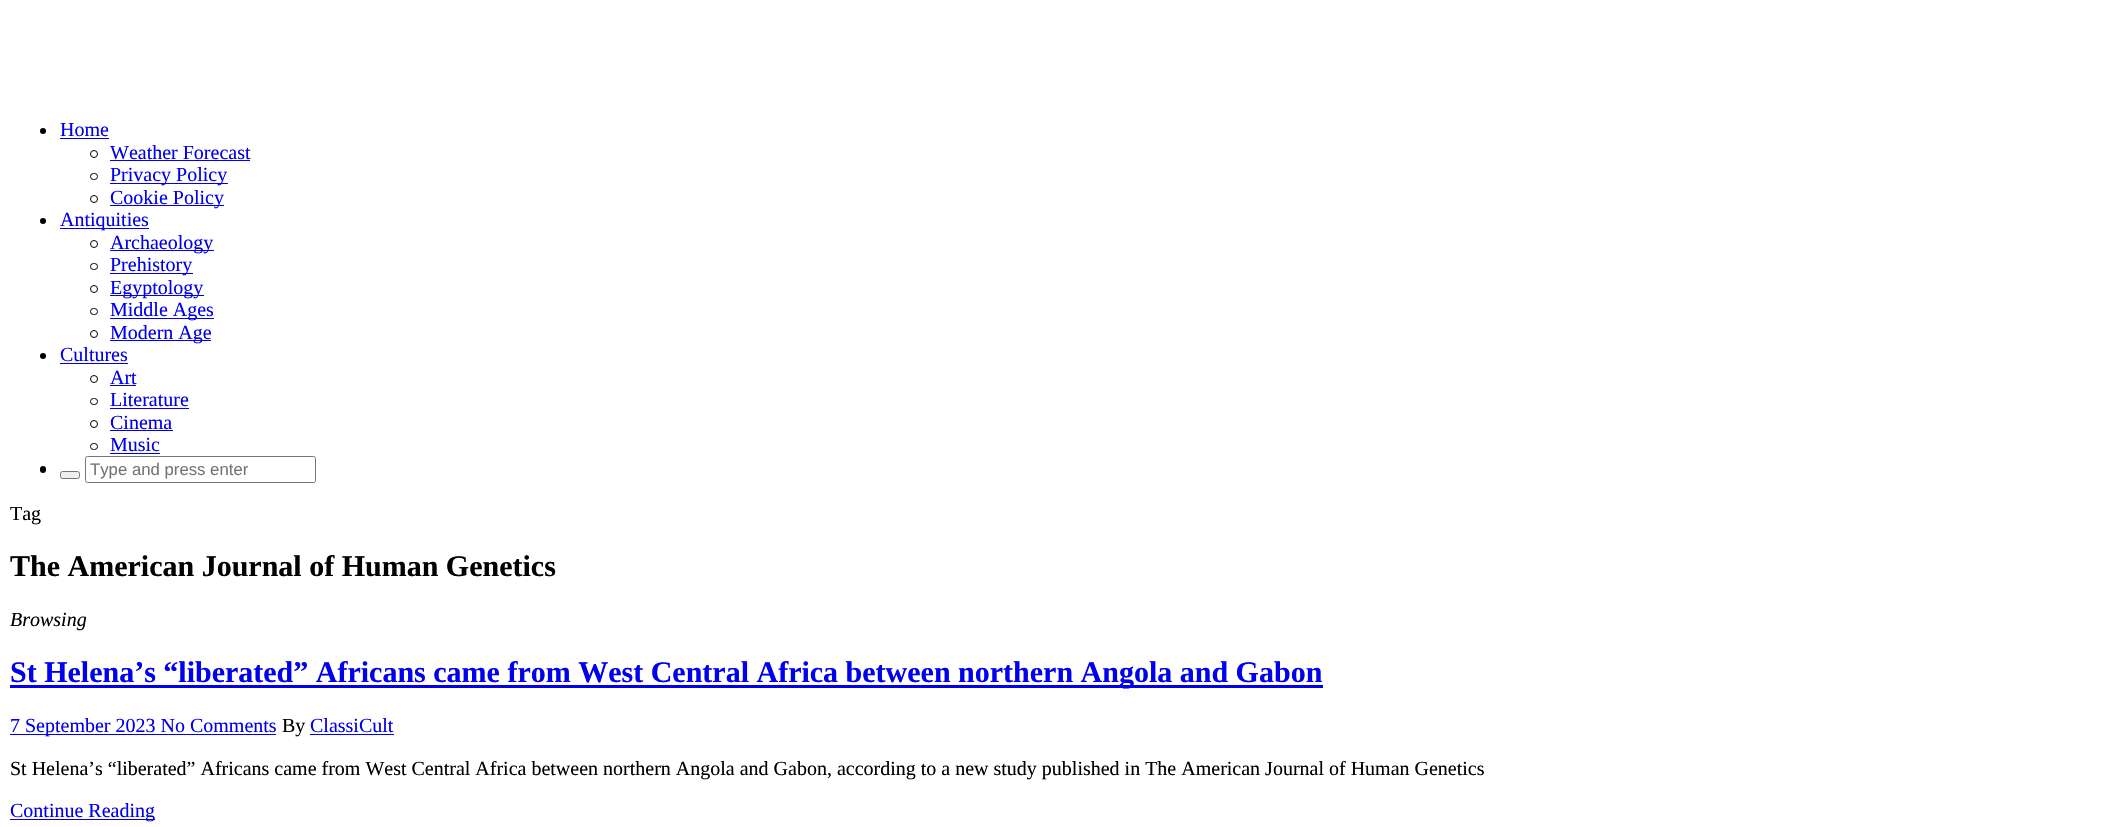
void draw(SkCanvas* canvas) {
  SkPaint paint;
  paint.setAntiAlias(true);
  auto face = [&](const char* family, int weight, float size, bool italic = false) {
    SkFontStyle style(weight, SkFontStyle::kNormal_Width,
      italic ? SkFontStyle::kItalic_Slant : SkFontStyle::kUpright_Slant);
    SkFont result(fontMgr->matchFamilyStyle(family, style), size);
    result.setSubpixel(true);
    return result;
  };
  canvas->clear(0xffffffff);
  paint.setColor(0xff000000);
  canvas->drawCircle(43, 131, 3, paint);
  paint.setColor(0xff0000ee);
  canvas->drawRect(SkRect::MakeXYWH(60, 138, 49, 1), paint);
  paint.setStroke(true);
  paint.setStrokeWidth(1);
  paint.setColor(0xff000000);
  canvas->drawCircle(94, 154, 3.5f, paint);
  paint.setStroke(false);
  paint.setColor(0xff0000ee);
  canvas->drawRect(SkRect::MakeXYWH(110, 160, 140, 1), paint);
  paint.setStroke(true);
  paint.setColor(0xff000000);
  canvas->drawRoundRect(SkRect::MakeXYWH(90.5f, 173.5f, 7, 6), 3, 3, paint);
  paint.setStroke(false);
  paint.setColor(0xff0000ee);
  canvas->drawRect(SkRect::MakeXYWH(110, 183, 118, 1), paint);
  paint.setStroke(true);
  paint.setColor(0xff000000);
  canvas->drawCircle(94, 199, 3.5f, paint);
  paint.setStroke(false);
  paint.setColor(0xff0000ee);
  canvas->drawRect(SkRect::MakeXYWH(110, 205, 114, 1), paint);
  paint.setColor(0xff000000);
  canvas->drawCircle(43, 221, 3, paint);
  paint.setColor(0xff0000ee);
  canvas->drawRect(SkRect::MakeXYWH(60, 228, 89, 1), paint);
  paint.setStroke(true);
  paint.setColor(0xff000000);
  canvas->drawCircle(94, 244, 3.5f, paint);
  paint.setStroke(false);
  paint.setColor(0xff0000ee);
  canvas->drawRect(SkRect::MakeXYWH(110, 250, 104, 1), paint);
  paint.setStroke(true);
  paint.setColor(0xff000000);
  canvas->drawRoundRect(SkRect::MakeXYWH(90.5f, 263.5f, 7, 6), 3, 3, paint);
  paint.setStroke(false);
  paint.setColor(0xff0000ee);
  canvas->drawRect(SkRect::MakeXYWH(110, 273, 83, 1), paint);
  paint.setStroke(true);
  paint.setColor(0xff000000);
  canvas->drawCircle(94, 289, 3.5f, paint);
  paint.setStroke(false);
  paint.setColor(0xff0000ee);
  canvas->drawRect(SkRect::MakeXYWH(110, 295, 94, 1), paint);
  paint.setStroke(true);
  paint.setColor(0xff000000);
  canvas->drawRoundRect(SkRect::MakeXYWH(90.5f, 308.5f, 7, 6), 3, 3, paint);
  paint.setStroke(false);
  paint.setColor(0xff0000ee);
  canvas->drawRect(SkRect::MakeXYWH(110, 318, 104, 1), paint);
  paint.setStroke(true);
  paint.setColor(0xff000000);
  canvas->drawCircle(94, 334, 3.5f, paint);
  paint.setStroke(false);
  paint.setColor(0xff0000ee);
  canvas->drawRect(SkRect::MakeXYWH(110, 340, 101, 1), paint);
  paint.setColor(0xff000000);
  canvas->drawCircle(43, 356, 3, paint);
  paint.setColor(0xff0000ee);
  canvas->drawRect(SkRect::MakeXYWH(60, 363, 68, 1), paint);
  paint.setStroke(true);
  paint.setColor(0xff000000);
  canvas->drawCircle(94, 379, 3.5f, paint);
  paint.setStroke(false);
  paint.setColor(0xff0000ee);
  canvas->drawRect(SkRect::MakeXYWH(110, 385, 26, 1), paint);
  paint.setStroke(true);
  paint.setColor(0xff000000);
  canvas->drawRoundRect(SkRect::MakeXYWH(90.5f, 398.5f, 7, 6), 3, 3, paint);
  paint.setStroke(false);
  paint.setColor(0xff0000ee);
  canvas->drawRect(SkRect::MakeXYWH(110, 408, 79, 1), paint);
  paint.setStroke(true);
  paint.setColor(0xff000000);
  canvas->drawCircle(94, 424, 3.5f, paint);
  paint.setStroke(false);
  paint.setColor(0xff0000ee);
  canvas->drawRect(SkRect::MakeXYWH(110, 430, 63, 1), paint);
  paint.setStroke(true);
  paint.setColor(0xff000000);
  canvas->drawRoundRect(SkRect::MakeXYWH(90.5f, 443.5f, 7, 6), 3, 3, paint);
  paint.setStroke(false);
  paint.setColor(0xff0000ee);
  canvas->drawRect(SkRect::MakeXYWH(110, 453, 50, 1), paint);
  paint.setColor(0xff000000);
  canvas->drawRoundRect(SkRect::MakeXYWH(40, 466, 6, 7), 3, 3, paint);
  paint.setColor(0xffefefef);
  canvas->drawRoundRect(SkRect::MakeXYWH(60.5f, 471.5f, 19, 7), 2, 2, paint);
  paint.setStroke(true);
  paint.setColor(0xff767676);
  canvas->drawRoundRect(SkRect::MakeXYWH(60.5f, 471.5f, 19, 7), 2, 2, paint);
  canvas->drawRoundRect(SkRect::MakeXYWH(85.5f, 456.5f, 230, 26), 2, 2, paint);
  paint.setStroke(false);
  {
    const struct { float x, y, w, h; SkColor color; } items[] = {
      {10, 685, 1313, 3, 0xff0000ee},
      {10, 734, 266, 1, 0xff0000ee},
      {310, 734, 84, 1, 0xff0000ee},
      {10, 819, 145, 1, 0xff0000ee},
    };
    for (auto [x, y, w, h, color] : items) {
      paint.setColor(color);
      canvas->drawRect(SkRect::MakeXYWH(x, y, w, h), paint);
    }
  }
  auto f0 = face("Liberation Serif", 400, 20);
  {
    const struct { const char* s; float x, y; } items[] = {
      {"Home", 60, 136},
      {"Weather Forecast", 110, 159},
      {"Privacy Policy", 110, 181},
      {"Cookie Policy", 110, 204},
      {"Antiquities", 60, 226},
      {"Archaeology", 110, 249},
      {"Prehistory", 110, 271},
      {"Egyptology", 110, 294},
      {"Middle Ages", 110, 316},
      {"Modern Age", 110, 339},
      {"Cultures", 60, 361},
      {"Art", 110, 384},
      {"Literature", 110, 406},
      {"Cinema", 110, 429},
      {"Music", 110, 451},
    };
    for (auto [s, x, y] : items) {
      canvas->drawString(s, x, y, f0, paint);
    }
  }
  auto f1 = face("Liberation Sans", 400, 16.75f);
  paint.setColor(0xff757575);
  canvas->drawString("Type and press enter", 90, 475, f1, paint);
  paint.setColor(0xff000000);
  canvas->drawString("Tag", 10, 520, f0, paint);
  auto f2 = face("Liberation Serif", 700, 30);
  canvas->drawString("The American Journal of Human Genetics", 10, 576, f2, paint);
  auto f3 = face("Liberation Serif", 400, 20, true);
  canvas->drawString("Browsing", 10, 626, f3, paint);
  paint.setColor(0xff0000ee);
  canvas->drawString("St Helena’s “liberated” Africans came from West Central Africa between northern Angola and Gabon", 10, 682, f2, paint);
  canvas->drawString("7 September 2023 No Comments", 10, 732, f0, paint);
  paint.setColor(0xff000000);
  canvas->drawString("By", 282, 732, f0, paint);
  paint.setColor(0xff0000ee);
  canvas->drawString("ClassiCult", 310, 732, f0, paint);
  paint.setColor(0xff000000);
  canvas->drawString("St Helena’s “liberated” Africans came from West Central Africa between northern Angola and Gabon, according to a new study published in The American Journal of Human Genetics", 10, 775, f0, paint);
  paint.setColor(0xff0000ee);
  canvas->drawString("Continue Reading", 10, 817, f0, paint);
}
